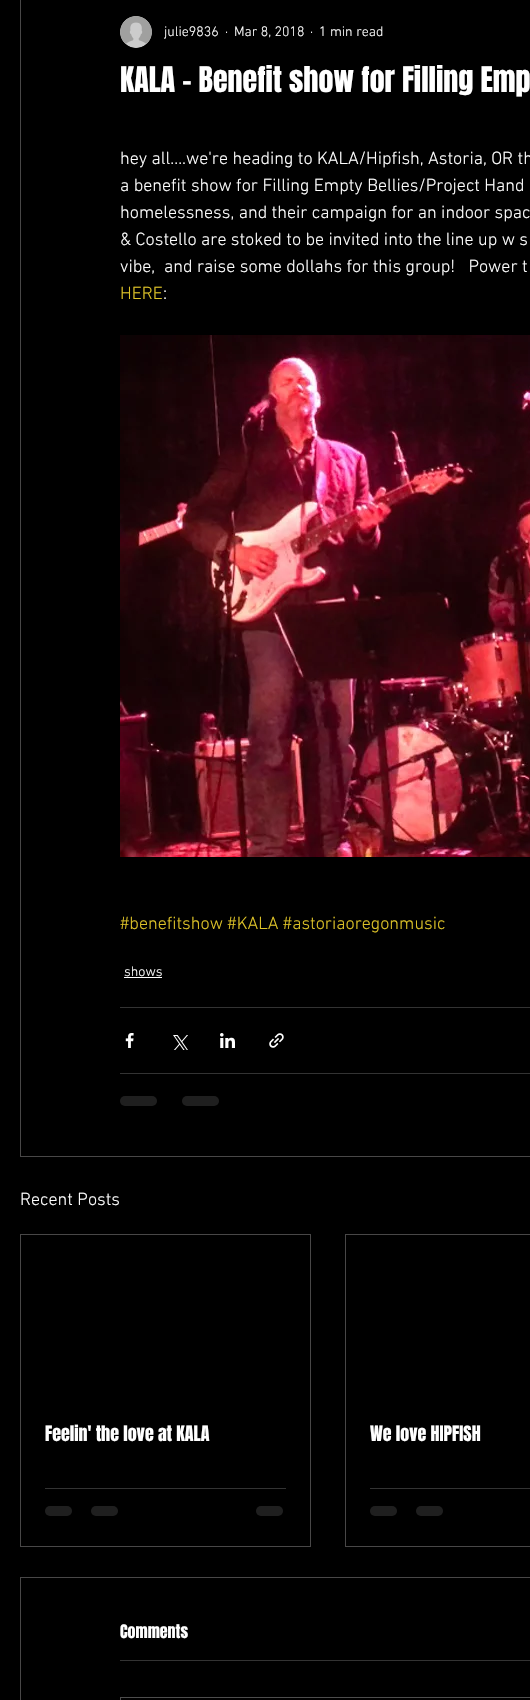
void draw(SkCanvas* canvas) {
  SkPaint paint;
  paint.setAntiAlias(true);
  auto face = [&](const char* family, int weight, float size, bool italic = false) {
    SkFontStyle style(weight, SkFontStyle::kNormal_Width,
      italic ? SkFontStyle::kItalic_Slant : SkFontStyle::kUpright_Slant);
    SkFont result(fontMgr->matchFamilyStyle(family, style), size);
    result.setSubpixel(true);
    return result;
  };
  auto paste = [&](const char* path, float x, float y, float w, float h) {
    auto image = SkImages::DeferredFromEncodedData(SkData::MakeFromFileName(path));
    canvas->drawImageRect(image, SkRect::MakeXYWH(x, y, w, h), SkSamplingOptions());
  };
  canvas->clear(0xff000000);
  paint.setStroke(true);
  paint.setStrokeWidth(1);
  paint.setColor(0xff484747);
  canvas->drawRect(SkRect::MakeXYWH(20.5f, -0.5f, 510, 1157), paint);
  paste("img/1.png", 120, 16, 32, 32);
  paste("img/2.png", 120, 335, 410, 522);
  paint.setStroke(false);
  paint.setColor(0xffffffff);
  canvas->drawRect(SkRect::MakeXYWH(124, 977, 38, 1), paint);
  paint.setColor(0xff333333);
  canvas->drawRect(SkRect::MakeXYWH(120, 1007, 410, 1), paint);
  paste("img/3.png", 125, 1033, 9, 15);
  paste("img/4.png", 173, 1035, 15, 15);
  paste("img/5.png", 220, 1033, 15, 15);
  paste("img/6.png", 269, 1033, 15, 15);
  canvas->drawRect(SkRect::MakeXYWH(120, 1073, 410, 1), paint);
  paint.setColor(0xff1f1f1f);
  canvas->drawRoundRect(SkRect::MakeXYWH(120, 1096, 37, 10), 5, 5, paint);
  canvas->drawRoundRect(SkRect::MakeXYWH(182, 1096, 37, 10), 5, 5, paint);
  paint.setStroke(true);
  paint.setColor(0xff484747);
  canvas->drawRect(SkRect::MakeXYWH(20.5f, 1234.5f, 290, 312), paint);
  paint.setStroke(false);
  paint.setColor(0xff333333);
  canvas->drawRect(SkRect::MakeXYWH(45, 1488, 241, 1), paint);
  paint.setColor(0xff1f1f1f);
  canvas->drawRoundRect(SkRect::MakeXYWH(45, 1506, 27, 10), 5, 5, paint);
  canvas->drawRoundRect(SkRect::MakeXYWH(91, 1506, 27, 10), 5, 5, paint);
  canvas->drawRoundRect(SkRect::MakeXYWH(256, 1506, 27, 10), 5, 5, paint);
  paint.setStroke(true);
  paint.setColor(0xff484747);
  canvas->drawRect(SkRect::MakeXYWH(345.5f, 1234.5f, 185, 312), paint);
  paint.setStroke(false);
  paint.setColor(0xff333333);
  canvas->drawRect(SkRect::MakeXYWH(370, 1488, 160, 1), paint);
  paint.setColor(0xff1f1f1f);
  canvas->drawRoundRect(SkRect::MakeXYWH(370, 1506, 27, 10), 5, 5, paint);
  canvas->drawRoundRect(SkRect::MakeXYWH(416, 1506, 27, 10), 5, 5, paint);
  paint.setStroke(true);
  paint.setColor(0xff484747);
  canvas->drawRect(SkRect::MakeXYWH(20.5f, 1577.5f, 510, 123), paint);
  paint.setStroke(false);
  paint.setColor(0xff333333);
  canvas->drawRect(SkRect::MakeXYWH(120, 1660, 410, 1), paint);
  paint.setStroke(true);
  paint.setColor(0xff4d4d4d);
  canvas->drawRect(SkRect::MakeXYWH(120.5f, 1697.5f, 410, 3), paint);
  auto f0 = face("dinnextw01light", 300, 14);
  paint.setStroke(false);
  paint.setColor(0xffffffff);
  {
    const struct { const char* s; float x, y; } items[] = {
      {"julie9836", 164, 36},
      {"·", 225, 36},
      {"Mar 8, 2018", 234, 36},
      {"·", 310, 36},
      {"1 min read", 319, 36},
    };
    for (auto [s, x, y] : items) {
      canvas->drawString(s, x, y, f0, paint);
    }
  }
  auto f1 = face("Anton", 400, 30);
  canvas->drawString("KALA - Benefit show for Filling Emp", 120, 92, f1, paint);
  auto f2 = face("dinnextw01light", 300, 18);
  {
    const struct { const char* s; float x, y; } items[] = {
      {"hey all....we're heading to KALA/Hipfish, Astoria, OR th", 120, 164},
      {"a benefit show for Filling Empty Bellies/Project Hand", 120, 191},
      {"homelessness, and their campaign for an indoor spac", 120, 218},
      {"& Costello are stoked to be invited into the line up w s", 120, 245},
      {"vibe,  and raise some dollahs for this group!   Power t", 120, 272},
    };
    for (auto [s, x, y] : items) {
      canvas->drawString(s, x, y, f2, paint);
    }
  }
  paint.setColor(0xffdec328);
  canvas->drawString("HERE", 120, 299, f2, paint);
  paint.setColor(0xffffffff);
  canvas->drawString(":", 163, 299, f2, paint);
  paint.setColor(0xffdec328);
  canvas->drawString("#benefitshow #KALA #astoriaoregonmusic", 120, 929, f2, paint);
  paint.setColor(0xffffffff);
  canvas->drawString("shows", 124, 976, f0, paint);
  canvas->drawString("Recent Posts", 20, 1205, f2, paint);
  auto f3 = face("Anton", 400, 18);
  canvas->drawString("Feelin' the love at KALA", 45, 1441, f3, paint);
  canvas->drawString("We love HIPFISH", 370, 1441, f3, paint);
  auto f4 = face("Anton", 400, 16);
  canvas->drawString("Comments", 120, 1638, f4, paint);
}
